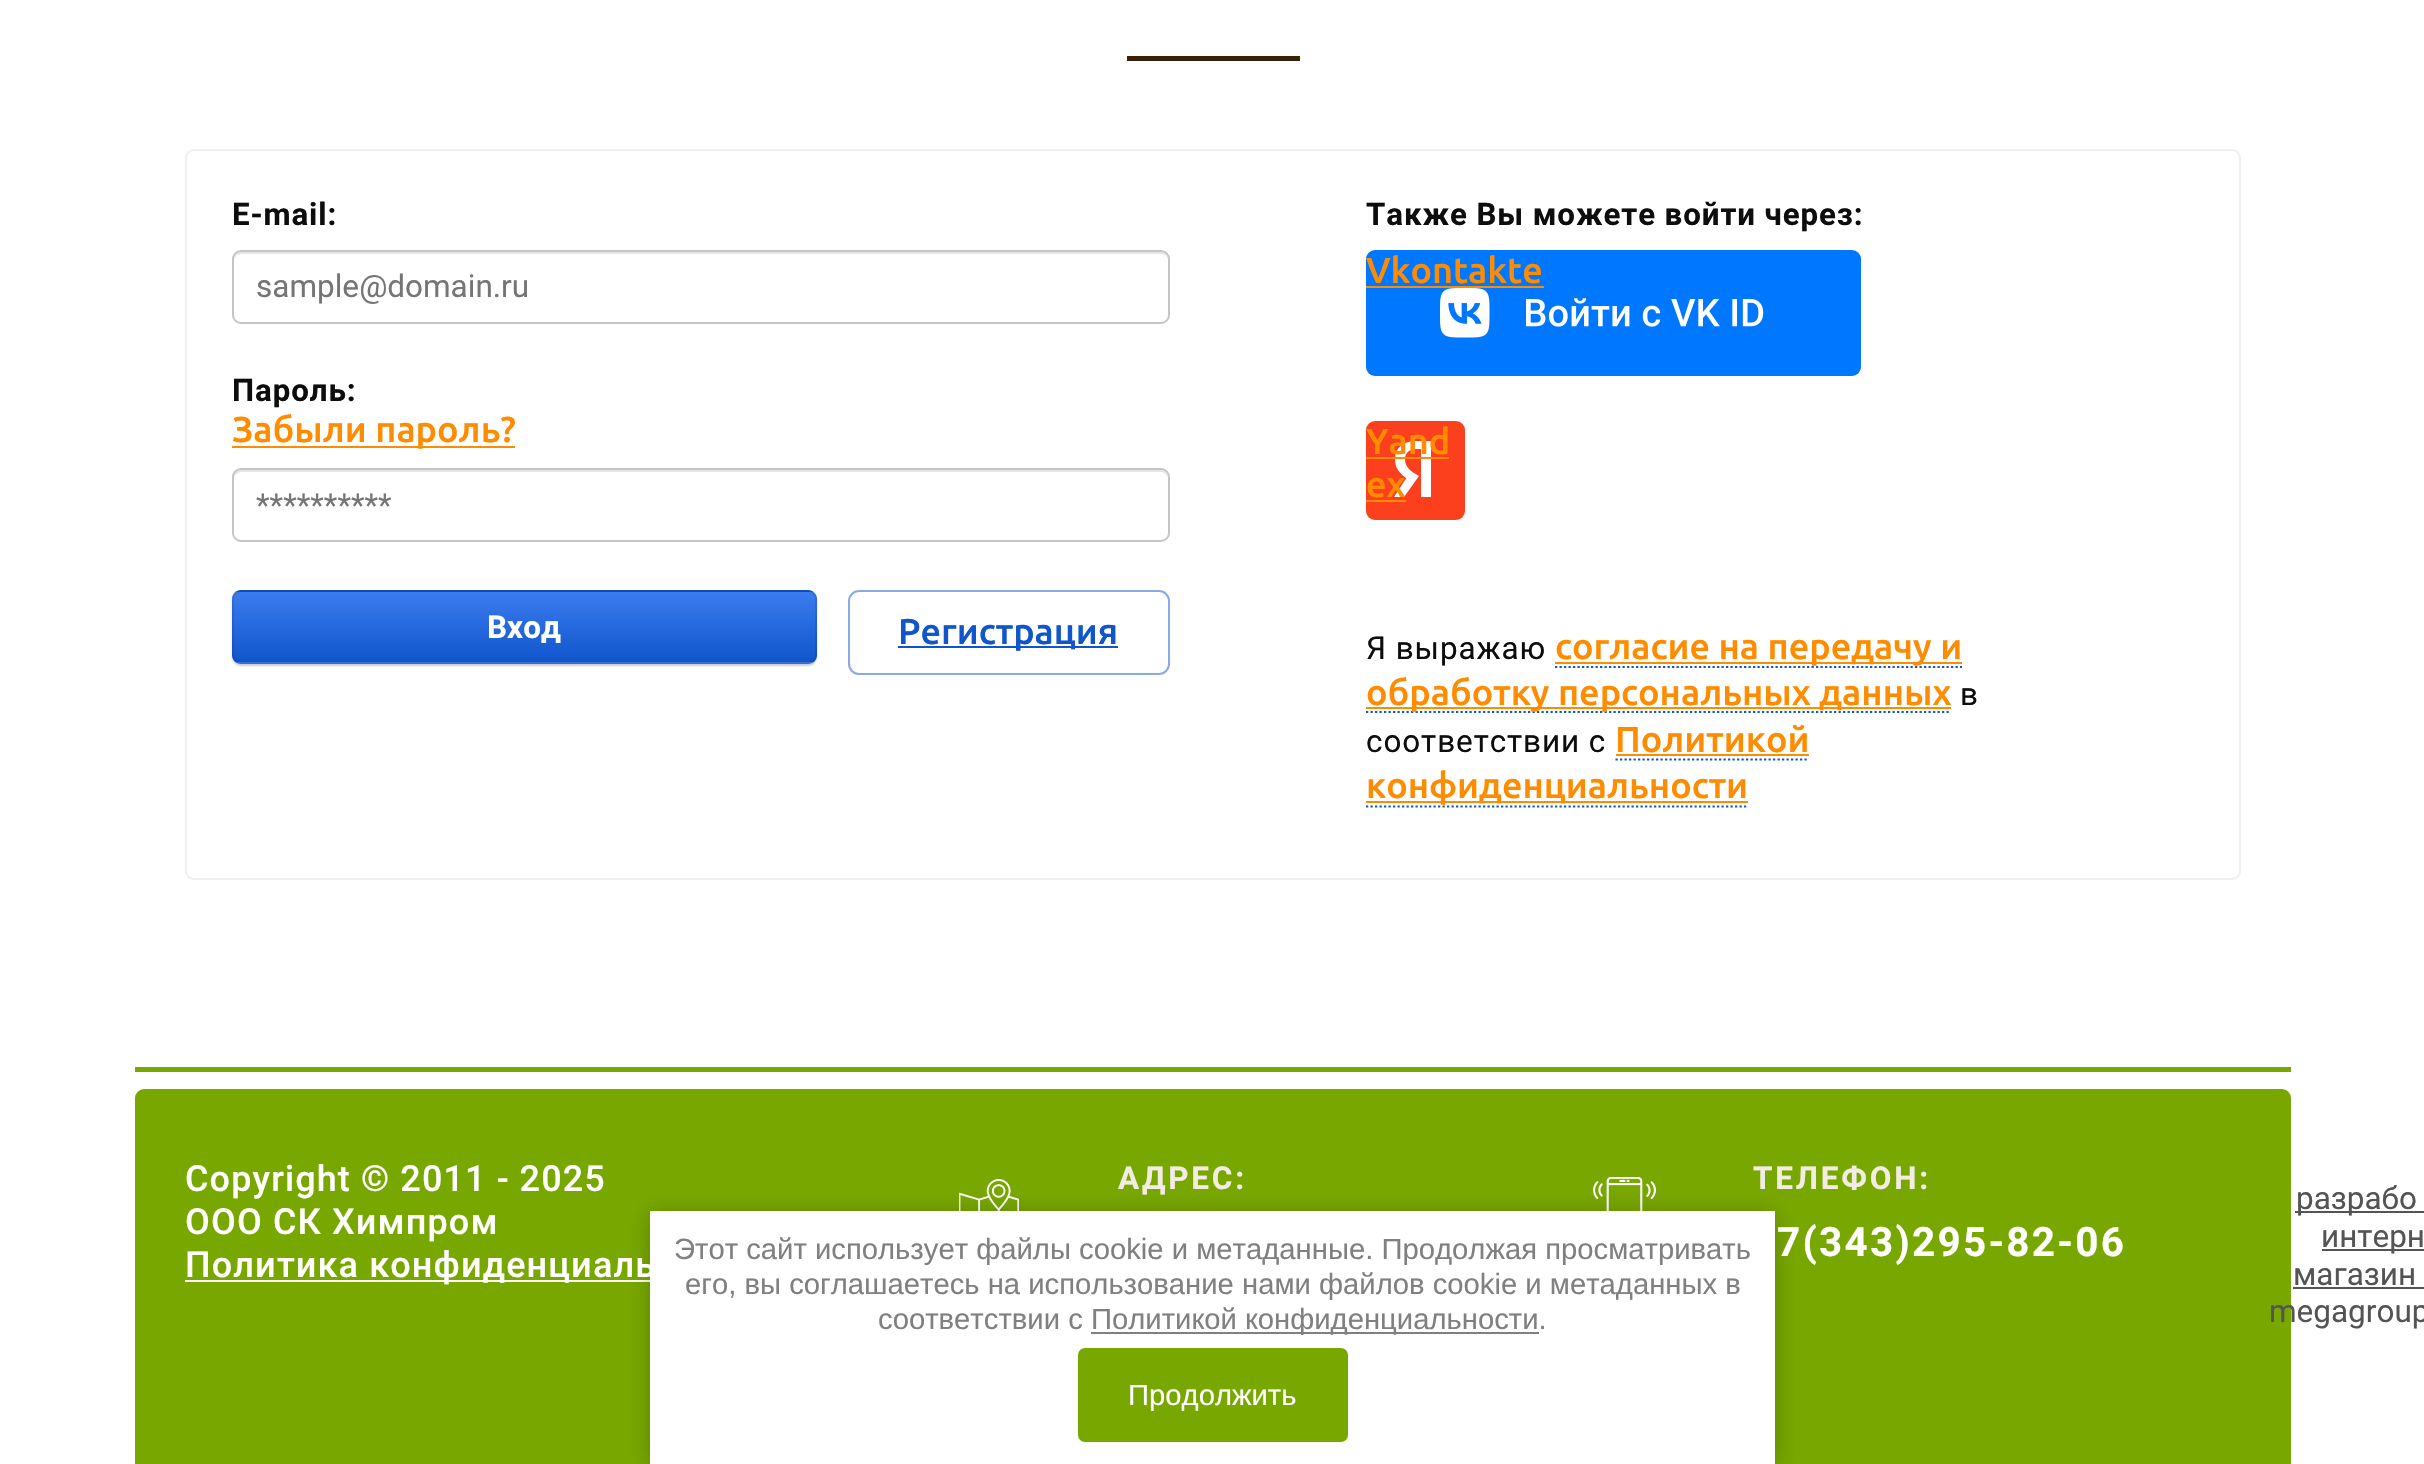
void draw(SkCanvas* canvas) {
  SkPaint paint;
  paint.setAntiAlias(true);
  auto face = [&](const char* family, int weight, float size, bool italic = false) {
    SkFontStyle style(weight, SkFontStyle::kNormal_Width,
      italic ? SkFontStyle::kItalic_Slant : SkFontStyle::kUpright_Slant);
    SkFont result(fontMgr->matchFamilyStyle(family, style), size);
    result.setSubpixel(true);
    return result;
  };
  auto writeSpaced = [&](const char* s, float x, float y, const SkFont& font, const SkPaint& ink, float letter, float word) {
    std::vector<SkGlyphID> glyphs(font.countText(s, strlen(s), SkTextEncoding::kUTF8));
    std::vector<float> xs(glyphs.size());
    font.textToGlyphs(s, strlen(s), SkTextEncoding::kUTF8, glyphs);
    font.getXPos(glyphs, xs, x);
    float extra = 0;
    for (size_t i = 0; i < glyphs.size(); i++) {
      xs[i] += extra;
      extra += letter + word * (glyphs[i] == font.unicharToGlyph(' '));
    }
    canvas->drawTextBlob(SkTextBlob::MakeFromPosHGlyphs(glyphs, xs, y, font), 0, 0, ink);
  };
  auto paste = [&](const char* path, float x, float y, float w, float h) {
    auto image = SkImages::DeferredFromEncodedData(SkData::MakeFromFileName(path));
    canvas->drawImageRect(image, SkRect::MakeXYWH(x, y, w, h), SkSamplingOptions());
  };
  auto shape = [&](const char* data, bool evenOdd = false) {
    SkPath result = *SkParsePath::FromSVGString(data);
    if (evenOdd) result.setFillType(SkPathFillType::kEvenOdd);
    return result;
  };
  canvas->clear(0xffffffff);
  paint.setColor(0xff3a2208);
  canvas->drawRect(SkRect::MakeXYWH(1127, 56, 173, 5), paint);
  paint.setStroke(true);
  paint.setStrokeWidth(2);
  paint.setColor(0xffefefef);
  canvas->drawRoundRect(SkRect::MakeXYWH(186, 150, 2054, 729), 8, 8, paint);
  paint.setStroke(false);
  paint.setColor(0xffe6e6e6);
  canvas->drawPath(shape("M241 254H1161C1165 254 1168 257 1168 261C1168 257 1166 252 1161 252H241C236 252 234 257 234 261C234 257 237 254 241 254Z"), paint);
  paint.setStroke(true);
  paint.setColor(0xffc5c5c5);
  canvas->drawRoundRect(SkRect::MakeXYWH(233, 251, 936, 72), 8, 8, paint);
  paint.setStroke(false);
  paint.setColor(0xffff8c00);
  canvas->drawRect(SkRect::MakeXYWH(232, 446, 283, 2), paint);
  paint.setColor(0xffe6e6e6);
  canvas->drawPath(shape("M241 472H1161C1165 472 1168 476 1168 479C1168 475 1166 470 1161 470H241C236 470 234 475 234 479C234 476 237 472 241 472Z"), paint);
  paint.setStroke(true);
  paint.setColor(0xffc5c5c5);
  canvas->drawRoundRect(SkRect::MakeXYWH(233, 469, 936, 72), 8, 8, paint);
  paint.setStroke(false);
  paint.setColor(0x33000000);
  paint.setMaskFilter(SkMaskFilter::MakeBlur(kNormal_SkBlurStyle, 1));
  canvas->drawRoundRect(SkRect::MakeXYWH(232, 592, 585, 74), 9, 9, paint);
  paint.setMaskFilter(nullptr);
  canvas->save();
  canvas->clipPath(shape("M241 590H808C813 590 817 594 817 599V655C817 660 813 664 808 664H241C236 664 232 660 232 655V599C232 594 236 590 241 590Z"), true);
  {
    const SkColor colors[] = {0xff3b7cef, 0xff1155cc};
    const float stops[] = {0, 1};
    const SkPoint ends[] = {{524, 522}, {524, 592}};
    paint.setShader(SkGradientShader::MakeLinear(ends, colors, stops, 2, SkTileMode::kClamp));
    paint.setAlpha(255);
  }
  canvas->drawRect(SkRect::MakeXYWH(232, 590, 585, 2), paint);
  {
    const SkColor colors[] = {0xff3b7cef, 0xff1155cc};
    const float stops[] = {0, 1};
    const SkPoint ends[] = {{524, 592}, {524, 662}};
    paint.setShader(SkGradientShader::MakeLinear(ends, colors, stops, 2, SkTileMode::kClamp));
    paint.setAlpha(255);
  }
  canvas->drawRect(SkRect::MakeXYWH(232, 592, 585, 70), paint);
  {
    const SkColor colors[] = {0xff3b7cef, 0xff1155cc};
    const float stops[] = {0, 1};
    const SkPoint ends[] = {{524, 662}, {524, 731}};
    paint.setShader(SkGradientShader::MakeLinear(ends, colors, stops, 2, SkTileMode::kClamp));
    paint.setAlpha(255);
  }
  canvas->drawRect(SkRect::MakeXYWH(232, 662, 585, 2), paint);
  canvas->restore();
  paint.setStroke(true);
  paint.setShader(nullptr);
  paint.setColor(0x1a000000);
  canvas->drawRoundRect(SkRect::MakeXYWH(233, 591, 583, 72), 8, 8, paint);
  paint.setColor(0xff88aae6);
  canvas->drawRoundRect(SkRect::MakeXYWH(849, 591, 320, 83), 10, 10, paint);
  paint.setStroke(false);
  paint.setColor(0xff1155cc);
  canvas->drawRect(SkRect::MakeXYWH(898, 646, 220, 2), paint);
  paint.setColor(0xff0077ff);
  canvas->drawRoundRect(SkRect::MakeXYWH(1366, 250, 495, 126), 9, 9, paint);
  paste("img/1.png", 1440, 288, 324, 50);
  paint.setColor(0xffff8c00);
  canvas->drawRect(SkRect::MakeXYWH(1366, 286, 178, 2), paint);
  paint.setColor(0xfffc3f1d);
  canvas->drawRoundRect(SkRect::MakeXYWH(1366, 421, 99, 99), 9, 9, paint);
  paint.setColor(0xffffffff);
  canvas->drawPath(shape("M1421 497H1431V441H1417C1403 441 1395 448 1395 459C1395 469 1400 474 1409 480L1414 483L1407 477L1394 497H1404L1419 476L1414 473C1408 469 1405 465 1405 459C1405 453 1409 449 1417 449H1421Z"), paint);
  paint.setColor(0xffff8c00);
  canvas->drawRect(SkRect::MakeXYWH(1366, 457, 83, 2), paint);
  canvas->drawRect(SkRect::MakeXYWH(1366, 500, 40, 2), paint);
  paint.setStroke(true);
  paint.setStrokeWidth(2.2f);
  paint.setColor(0xff1155cc);
  paint.setPathEffect(SkDashPathEffect::Make({{2.25f, 2.25f}}, 0));
  canvas->drawPath(shape("M1555 667H1962"), paint);
  paint.setPathEffect(nullptr);
  paint.setStroke(false);
  paint.setColor(0xffff8c00);
  canvas->drawRect(SkRect::MakeXYWH(1555, 662, 407, 2), paint);
  paint.setStroke(true);
  paint.setColor(0xff1155cc);
  paint.setPathEffect(SkDashPathEffect::Make({{2.25f, 2.25f}}, 0));
  canvas->drawPath(shape("M1366 712H1951"), paint);
  paint.setPathEffect(nullptr);
  paint.setStroke(false);
  paint.setColor(0xffff8c00);
  canvas->drawRect(SkRect::MakeXYWH(1366, 707, 585, 2), paint);
  paint.setStroke(true);
  paint.setColor(0xff1155cc);
  paint.setPathEffect(SkDashPathEffect::Make({{2.25f, 2.25f}}, 0));
  canvas->drawPath(shape("M1615.5 759.5H1809"), paint);
  paint.setPathEffect(nullptr);
  paint.setStroke(false);
  paint.setColor(0xffff8c00);
  canvas->drawRect(SkRect::MakeXYWH(1616, 754, 193, 2), paint);
  paint.setStroke(true);
  paint.setColor(0xff1155cc);
  paint.setPathEffect(SkDashPathEffect::Make({{2.25f, 2.25f}}, 0));
  canvas->drawPath(shape("M1366 806.5H1748"), paint);
  paint.setPathEffect(nullptr);
  paint.setStroke(false);
  paint.setColor(0xffff8c00);
  canvas->drawRect(SkRect::MakeXYWH(1366, 801, 382, 2), paint);
  paint.setColor(0xff78a800);
  canvas->drawRect(SkRect::MakeXYWH(135, 1067, 2156, 5), paint);
  canvas->drawRoundRect(SkRect::MakeXYWH(135, 1089, 2156, 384), 9, 9, paint);
  paint.setColor(0xffffffff);
  canvas->drawRect(SkRect::MakeXYWH(185, 1280, 465, 2), paint);
  paste("img/2.png", 959, 1179, 60, 32);
  paste("img/3.png", 1593, 1177, 63, 34);
  {
    const struct { float x, y, w, h; SkColor color; } items[] = {
      {2295, 1211, 129, 2, 0xff545454},
      {2322, 1249, 102, 2, 0xff545454},
      {2293, 1287, 131, 2, 0xff545454},
    };
    for (auto [x, y, w, h, color] : items) {
      paint.setColor(color);
      canvas->drawRect(SkRect::MakeXYWH(x, y, w, h), paint);
    }
  }
  paint.setColor(0x3b000000);
  paint.setMaskFilter(SkMaskFilter::MakeBlur(kNormal_SkBlurStyle, 11));
  canvas->drawRect(SkRect::MakeXYWH(650, 1213, 1125, 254), paint);
  paint.setMaskFilter(nullptr);
  paint.setColor(0xffffffff);
  canvas->drawRect(SkRect::MakeXYWH(650, 1211, 1125, 253), paint);
  paint.setColor(0xff808080);
  canvas->drawRect(SkRect::MakeXYWH(1091, 1332, 448, 2), paint);
  paint.setColor(0xff78a800);
  canvas->drawRoundRect(SkRect::MakeXYWH(1078, 1348, 270, 94), 7, 7, paint);
  auto f0 = face("Roboto", 700, 31.25f);
  paint.setColor(0xff0d0d0d);
  writeSpaced("E-mail:", 232, 225, f0, paint, 0.9f, 0);
  auto f1 = face("Roboto", 400, 31.5f);
  paint.setColor(0xff757575);
  canvas->drawString("sample@domain.ru", 256, 297, f1, paint);
  paint.setColor(0xff0d0d0d);
  writeSpaced("Пароль:", 232, 401, f0, paint, 0.9f, 0);
  auto f2 = face("Ubuntu", 500, 36);
  paint.setColor(0xffff8c00);
  canvas->drawString("Забыли пароль?", 232, 442, f2, paint);
  paint.setColor(0xff757575);
  canvas->drawString("**********", 256, 516, f1, paint);
  auto f3 = face("Roboto", 700, 31.5f);
  paint.setColor(0xffffffff);
  canvas->drawString("Вход", 487, 638, f3, paint);
  paint.setColor(0xff1155cc);
  canvas->drawString("Регистрация", 898, 644, f2, paint);
  paint.setColor(0xff0d0d0d);
  writeSpaced("Также Вы можете войти через:", 1366, 225, f0, paint, 0.9f, 0);
  paint.setColor(0xffff8c00);
  {
    const struct { const char* s; float x, y; } items[] = {
      {"Vkontakte", 1366, 283},
      {"Yand", 1366, 454},
      {"ex", 1366, 497},
    };
    for (auto [s, x, y] : items) {
      canvas->drawString(s, x, y, f2, paint);
    }
  }
  paint.setColor(0xff0d0d0d);
  writeSpaced("Я выражаю", 1366, 659, f1, paint, 0.9f, 0);
  paint.setColor(0xffff8c00);
  canvas->drawString("согласие на передачу и", 1555, 659, f2, paint);
  canvas->drawString("обработку персональных данных", 1366, 705, f2, paint);
  paint.setColor(0xff0d0d0d);
  writeSpaced("в", 1960, 705, f1, paint, 0.9f, 0);
  writeSpaced("соответствии с", 1366, 752, f1, paint, 0.9f, 0);
  paint.setColor(0xffff8c00);
  canvas->drawString("Политикой", 1615, 752, f2, paint);
  canvas->drawString("конфиденциальности", 1366, 798, f2, paint);
  auto f4 = face("Roboto", 500, 36);
  paint.setColor(0xffffffff);
  {
    const struct { const char* s; float x, y; } items[] = {
      {"Copyright © 2011 - 2025", 185, 1191},
      {"ООО СК Химпром", 185, 1234},
      {"Политика конфиденциаль", 185, 1277},
    };
    for (auto [s, x, y] : items) {
      writeSpaced(s, x, y, f4, paint, 1.1f, 0);
    }
  }
  paint.setColor(0xfff2ece5);
  writeSpaced("АДРЕС:", 1118, 1189, f3, paint, 2.75f, 0);
  writeSpaced("ТЕЛЕФОН:", 1753, 1189, f3, paint, 2.75f, 0);
  auto f5 = face("Roboto", 700, 40.5f);
  paint.setColor(0xffffffff);
  writeSpaced("7(343)295-82-06", 1777, 1256, f5, paint, 2.25f, 0);
  paint.setColor(0xff545454);
  {
    const struct { const char* s; float x, y; } items[] = {
      {"разрабо", 2296, 1209},
      {"интерн", 2321, 1247},
      {"магазин", 2293, 1285},
      {"megagroup", 2269, 1322},
    };
    for (auto [s, x, y] : items) {
      canvas->drawString(s, x, y, f1, paint);
    }
  }
  auto f6 = face("Liberation Sans", 400, 29.25f);
  paint.setColor(0xff808080);
  {
    const struct { const char* s; float x, y; } items[] = {
      {"Этот сайт использует файлы cookie и метаданные. Продолжая просматривать", 674, 1259},
      {"его, вы соглашаетесь на использование нами файлов cookie и метаданных в", 685, 1294},
      {"соответствии с", 878, 1329},
      {"Политикой конфиденциальности.", 1091, 1329},
    };
    for (auto [s, x, y] : items) {
      canvas->drawString(s, x, y, f6, paint);
    }
  }
  paint.setColor(0xffffffff);
  canvas->drawString("Продолжить", 1128, 1405, f6, paint);
}
